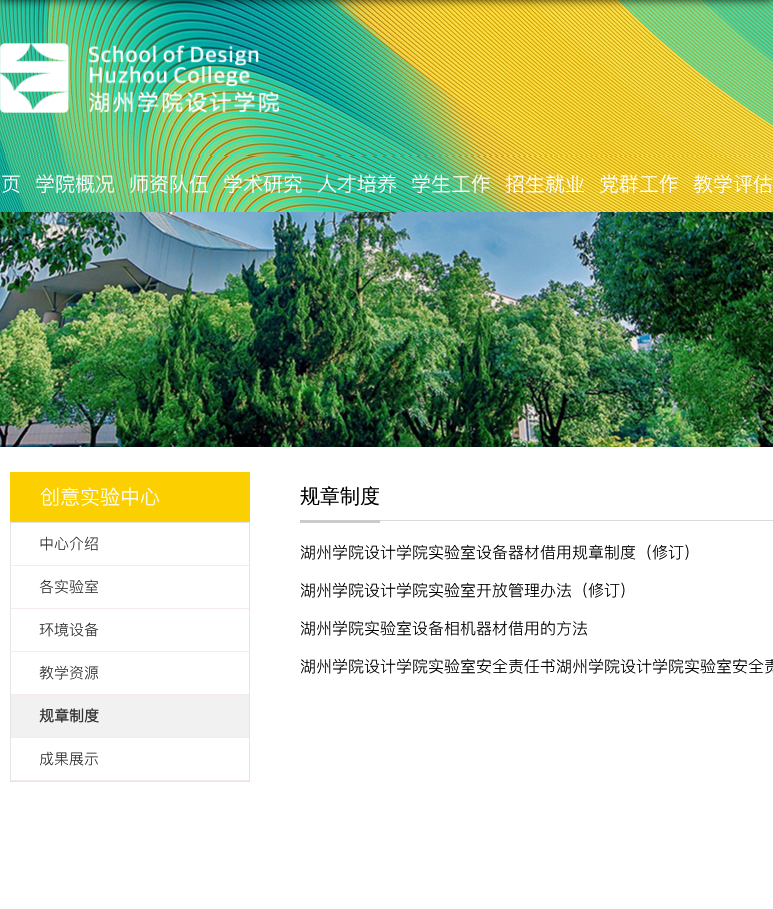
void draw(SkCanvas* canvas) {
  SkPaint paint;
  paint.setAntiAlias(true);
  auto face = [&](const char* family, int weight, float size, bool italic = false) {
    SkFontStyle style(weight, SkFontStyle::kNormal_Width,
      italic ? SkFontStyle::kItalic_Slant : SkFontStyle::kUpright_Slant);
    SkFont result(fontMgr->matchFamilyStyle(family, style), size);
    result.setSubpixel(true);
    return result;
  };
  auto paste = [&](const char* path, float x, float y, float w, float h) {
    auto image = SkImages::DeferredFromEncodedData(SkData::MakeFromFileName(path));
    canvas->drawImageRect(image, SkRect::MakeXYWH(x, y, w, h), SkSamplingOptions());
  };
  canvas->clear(0xffffffff);
  paste("img/1.png", 0, 0, 773, 156);
  paste("img/2.png", 0, 43, 280, 70);
  paint.setColor(0xcc000000);
  paint.setMaskFilter(SkMaskFilter::MakeBlur(kNormal_SkBlurStyle, 5));
  canvas->drawRect(SkRect::MakeXYWH(0, -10, 773, 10), paint);
  paint.setMaskFilter(nullptr);
  paste("img/3.png", 0, 156, 773, 56);
  paste("img/4.png", 0, 212, 773, 235);
  paint.setColor(0xfffccf01);
  canvas->drawRect(SkRect::MakeXYWH(10, 472, 240, 50), paint);
  paint.setStroke(true);
  paint.setStrokeWidth(1);
  paint.setColor(0xffe4e4e4);
  canvas->drawRect(SkRect::MakeXYWH(10.5f, 522.5f, 239, 259), paint);
  paint.setStroke(false);
  {
    const struct { float x, y, w, h; SkColor color; } items[] = {
      {11, 565, 238, 1, 0xfff6eaea},
      {11, 608, 238, 1, 0xfff6eaea},
      {11, 651, 238, 1, 0xfff6eaea},
      {11, 694, 238, 1, 0xfff6eaea},
      {11, 695, 238, 42, 0xfff1f1f1},
      {11, 737, 238, 1, 0xfff6eaea},
      {11, 780, 238, 1, 0xfff6eaea},
      {380, 520, 393, 1, 0xffdbdbdb},
      {300, 520, 80, 3, 0xffcbcbcb},
    };
    for (auto [x, y, w, h, color] : items) {
      paint.setColor(color);
      canvas->drawRect(SkRect::MakeXYWH(x, y, w, h), paint);
    }
  }
  auto f0 = face("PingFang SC", 400, 20);
  paint.setColor(0xffffffff);
  {
    const struct { const char* s; float x, y; } items[] = {
      {"页", 1, 191},
      {"学院概况", 35, 191},
      {"师资队伍", 129, 191},
      {"学术研究", 223, 191},
      {"人才培养", 317, 191},
      {"学生工作", 411, 191},
      {"招生就业", 505, 191},
      {"党群工作", 599, 191},
      {"教学评估", 693, 191},
      {"创意实验中心", 40, 504},
    };
    for (auto [s, x, y] : items) {
      canvas->drawString(s, x, y, f0, paint);
    }
  }
  auto f1 = face("PingFang SC", 400, 15);
  paint.setColor(0xff333333);
  {
    const struct { const char* s; float x, y; } items[] = {
      {"中心介绍", 39, 549},
      {"各实验室", 39, 592},
      {"环境设备", 39, 635},
      {"教学资源", 39, 678},
    };
    for (auto [s, x, y] : items) {
      canvas->drawString(s, x, y, f1, paint);
    }
  }
  auto f2 = face("PingFang SC", 700, 15);
  canvas->drawString("规章制度", 39, 721, f2, paint);
  canvas->drawString("成果展示", 39, 764, f1, paint);
  auto f3 = face("WenQuanYi Zen Hei", 500, 20);
  paint.setColor(0xff000000);
  canvas->drawString("规章制度", 300, 503, f3, paint);
  auto f4 = face("PingFang SC", 400, 16);
  {
    const struct { const char* s; float x, y; } items[] = {
      {"湖州学院设计学院实验室设备器材借用规章制度（修订）", 300, 558},
      {"湖州学院设计学院实验室开放管理办法（修订）", 300, 596},
      {"湖州学院实验室设备相机器材借用的方法", 300, 634},
      {"湖州学院设计学院实验室安全责任书湖州学院设计学院实验室安全责", 300, 672},
    };
    for (auto [s, x, y] : items) {
      canvas->drawString(s, x, y, f4, paint);
    }
  }
}
